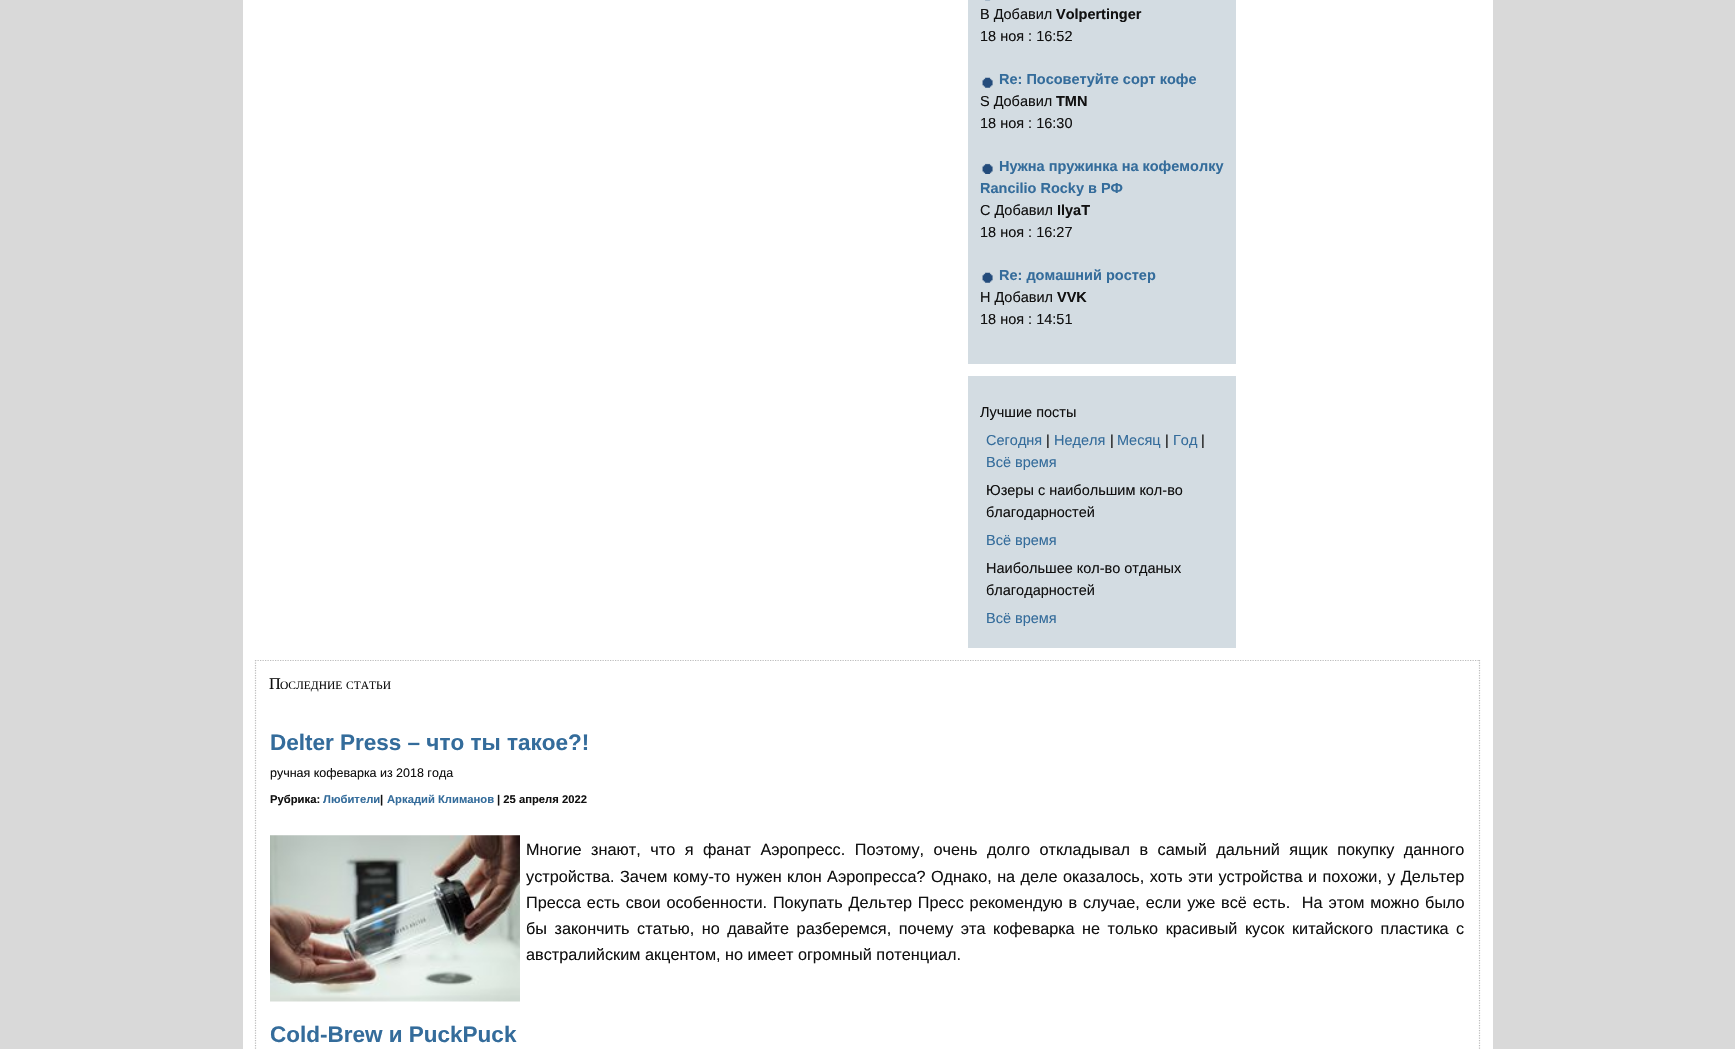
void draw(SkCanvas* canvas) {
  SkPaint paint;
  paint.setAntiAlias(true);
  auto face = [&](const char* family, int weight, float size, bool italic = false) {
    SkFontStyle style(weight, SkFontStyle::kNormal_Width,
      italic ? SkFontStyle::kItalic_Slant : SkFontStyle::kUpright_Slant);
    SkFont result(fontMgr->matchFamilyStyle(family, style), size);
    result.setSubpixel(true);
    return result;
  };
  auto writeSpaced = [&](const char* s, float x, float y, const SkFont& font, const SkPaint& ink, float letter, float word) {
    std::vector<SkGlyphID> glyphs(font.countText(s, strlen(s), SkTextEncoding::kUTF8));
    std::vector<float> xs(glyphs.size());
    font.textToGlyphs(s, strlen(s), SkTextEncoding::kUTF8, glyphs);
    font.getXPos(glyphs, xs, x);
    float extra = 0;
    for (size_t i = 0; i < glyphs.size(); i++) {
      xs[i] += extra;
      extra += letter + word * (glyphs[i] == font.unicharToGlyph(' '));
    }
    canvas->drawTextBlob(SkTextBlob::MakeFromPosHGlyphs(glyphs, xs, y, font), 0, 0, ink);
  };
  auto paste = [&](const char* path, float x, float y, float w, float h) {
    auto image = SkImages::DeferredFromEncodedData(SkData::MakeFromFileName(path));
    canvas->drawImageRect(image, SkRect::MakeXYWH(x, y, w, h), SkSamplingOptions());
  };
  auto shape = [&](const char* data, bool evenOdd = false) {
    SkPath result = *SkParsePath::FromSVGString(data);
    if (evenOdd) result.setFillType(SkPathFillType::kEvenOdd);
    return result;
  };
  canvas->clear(0xffd9d9d9);
  paint.setColor(0xffffffff);
  canvas->drawRect(SkRect::MakeXYWH(243, 0, 1250, 1049), paint);
  paint.setColor(0xffd3dce2);
  canvas->drawRect(SkRect::MakeXYWH(968, 0, 268, 364), paint);
  paste("img/1.png", 985, 0, 6, 1);
  paste("img/2.png", 982, 77, 11, 11);
  paste("img/3.png", 982, 163, 11, 11);
  paste("img/2.png", 982, 272, 11, 11);
  canvas->drawRect(SkRect::MakeXYWH(968, 376, 268, 272), paint);
  paint.setStroke(true);
  paint.setStrokeWidth(1.2f);
  paint.setColor(0xffbdbdbd);
  paint.setPathEffect(SkDashPathEffect::Make({{1.25f, 1.25f}}, 0));
  canvas->drawPath(shape("M255 660.5H1480"), paint);
  paint.setPathEffect(nullptr);
  paint.setPathEffect(SkDashPathEffect::Make({{1.25f, 1.25f}}, 0));
  canvas->drawPath(shape("M1479.5 660V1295"), paint);
  paint.setPathEffect(nullptr);
  paint.setPathEffect(SkDashPathEffect::Make({{1.25f, 1.25f}}, 0));
  canvas->drawPath(shape("M255.5 660V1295"), paint);
  paint.setPathEffect(nullptr);
  paste("img/4.png", 270, 835, 250, 167);
  auto f0 = face("Liberation Sans", 400, 14.5f);
  paint.setStroke(false);
  paint.setColor(0xff111111);
  canvas->drawString("В Добавил", 980, 19, f0, paint);
  auto f1 = face("Liberation Sans", 700, 14.5f);
  canvas->drawString("Volpertinger", 1056, 19, f1, paint);
  canvas->drawString("18 ноя : 16:52", 980, 41, f0, paint);
  paint.setColor(0xff346c9b);
  canvas->drawString("Re: Посоветуйте сорт кофе", 999, 84, f1, paint);
  paint.setColor(0xff111111);
  canvas->drawString("S Добавил", 980, 106, f0, paint);
  canvas->drawString("TMN", 1056, 106, f1, paint);
  canvas->drawString("18 ноя : 16:30", 980, 128, f0, paint);
  paint.setColor(0xff346c9b);
  canvas->drawString("Нужна пружинка на кофемолку", 999, 171, f1, paint);
  canvas->drawString("Rancilio Rocky в РФ", 980, 193, f1, paint);
  paint.setColor(0xff111111);
  canvas->drawString("С Добавил", 980, 215, f0, paint);
  canvas->drawString("IlyaT", 1057, 215, f1, paint);
  canvas->drawString("18 ноя : 16:27", 980, 237, f0, paint);
  paint.setColor(0xff346c9b);
  canvas->drawString("Re: домашний ростер", 999, 280, f1, paint);
  paint.setColor(0xff111111);
  canvas->drawString("Н Добавил", 980, 302, f0, paint);
  canvas->drawString("VVK", 1057, 302, f1, paint);
  canvas->drawString("18 ноя : 14:51", 980, 324, f0, paint);
  canvas->drawString("Лучшие посты", 980, 417, f0, paint);
  paint.setColor(0xff346c9b);
  canvas->drawString("Сегодня", 986, 445, f0, paint);
  paint.setColor(0xff111111);
  canvas->drawString("|", 1046, 445, f0, paint);
  paint.setColor(0xff346c9b);
  canvas->drawString("Неделя", 1054, 445, f0, paint);
  paint.setColor(0xff111111);
  canvas->drawString("|", 1110, 445, f0, paint);
  paint.setColor(0xff346c9b);
  canvas->drawString("Месяц", 1117, 445, f0, paint);
  paint.setColor(0xff111111);
  canvas->drawString("|", 1165, 445, f0, paint);
  paint.setColor(0xff346c9b);
  canvas->drawString("Год", 1173, 445, f0, paint);
  paint.setColor(0xff111111);
  canvas->drawString("|", 1201, 445, f0, paint);
  paint.setColor(0xff346c9b);
  canvas->drawString("Всё время", 986, 467, f0, paint);
  paint.setColor(0xff111111);
  canvas->drawString("Юзеры с наибольшим кол-во", 986, 495, f0, paint);
  canvas->drawString("благодарностей", 986, 517, f0, paint);
  paint.setColor(0xff346c9b);
  canvas->drawString("Всё время", 986, 545, f0, paint);
  paint.setColor(0xff111111);
  canvas->drawString("Наибольшее кол-во отданых", 986, 573, f0, paint);
  canvas->drawString("благодарностей", 986, 595, f0, paint);
  paint.setColor(0xff346c9b);
  canvas->drawString("Всё время", 986, 623, f0, paint);
  auto f2 = face("Liberation Serif", 400, 16.25f);
  paint.setColor(0xff111111);
  canvas->drawString("П", 269, 689, f2, paint);
  auto f3 = face("Liberation Serif", 400, 11.5f);
  canvas->drawString("ОСЛЕДНИЕ", 280, 689, f3, paint);
  canvas->drawString("СТАТЬИ", 346, 689, f3, paint);
  auto f4 = face("Liberation Sans", 700, 22.5f);
  paint.setColor(0xff346c9b);
  canvas->drawString("Delter Press – что ты такое?!", 270, 750, f4, paint);
  auto f5 = face("Liberation Sans", 400, 12.5f);
  paint.setColor(0xff111111);
  canvas->drawString("ручная кофеварка из 2018 года", 270, 777, f5, paint);
  auto f6 = face("Liberation Sans", 700, 11.25f);
  canvas->drawString("Рубрика:", 270, 803, f6, paint);
  paint.setColor(0xff346c9b);
  canvas->drawString("Любители", 323, 803, f6, paint);
  paint.setColor(0xff111111);
  canvas->drawString("|", 380, 803, f6, paint);
  paint.setColor(0xff346c9b);
  canvas->drawString("Аркадий Климанов", 387, 803, f6, paint);
  paint.setColor(0xff111111);
  canvas->drawString("| 25 апреля 2022", 497, 803, f6, paint);
  auto f7 = face("Liberation Sans", 400, 16.25f);
  writeSpaced("Многие знают, что я фанат Аэропресс. Поэтому, очень долго откладывал в самый дальний ящик покупку данного", 526, 855, f7, paint, 0, 5);
  writeSpaced("устройства. Зачем кому-то нужен клон Аэропресса? Однако, на деле оказалось, хоть эти устройства и похожи, у Дельтер", 526, 882, f7, paint, 0, 0.9f);
  writeSpaced("Пресса есть свои особенности. Покупать Дельтер Пресс рекомендую в случае, если уже всё есть.  На этом можно было", 526, 908, f7, paint, 0, 1.3f);
  writeSpaced("бы закончить статью, но давайте разберемся, почему эта кофеварка не только красивый кусок китайского пластика с", 526, 934, f7, paint, 0, 3);
  canvas->drawString("австралийским акцентом, но имеет огромный потенциал.", 526, 960, f7, paint);
  paint.setColor(0xff346c9b);
  canvas->drawString("Cold-Brew и PuckPuck", 270, 1042, f4, paint);
}
